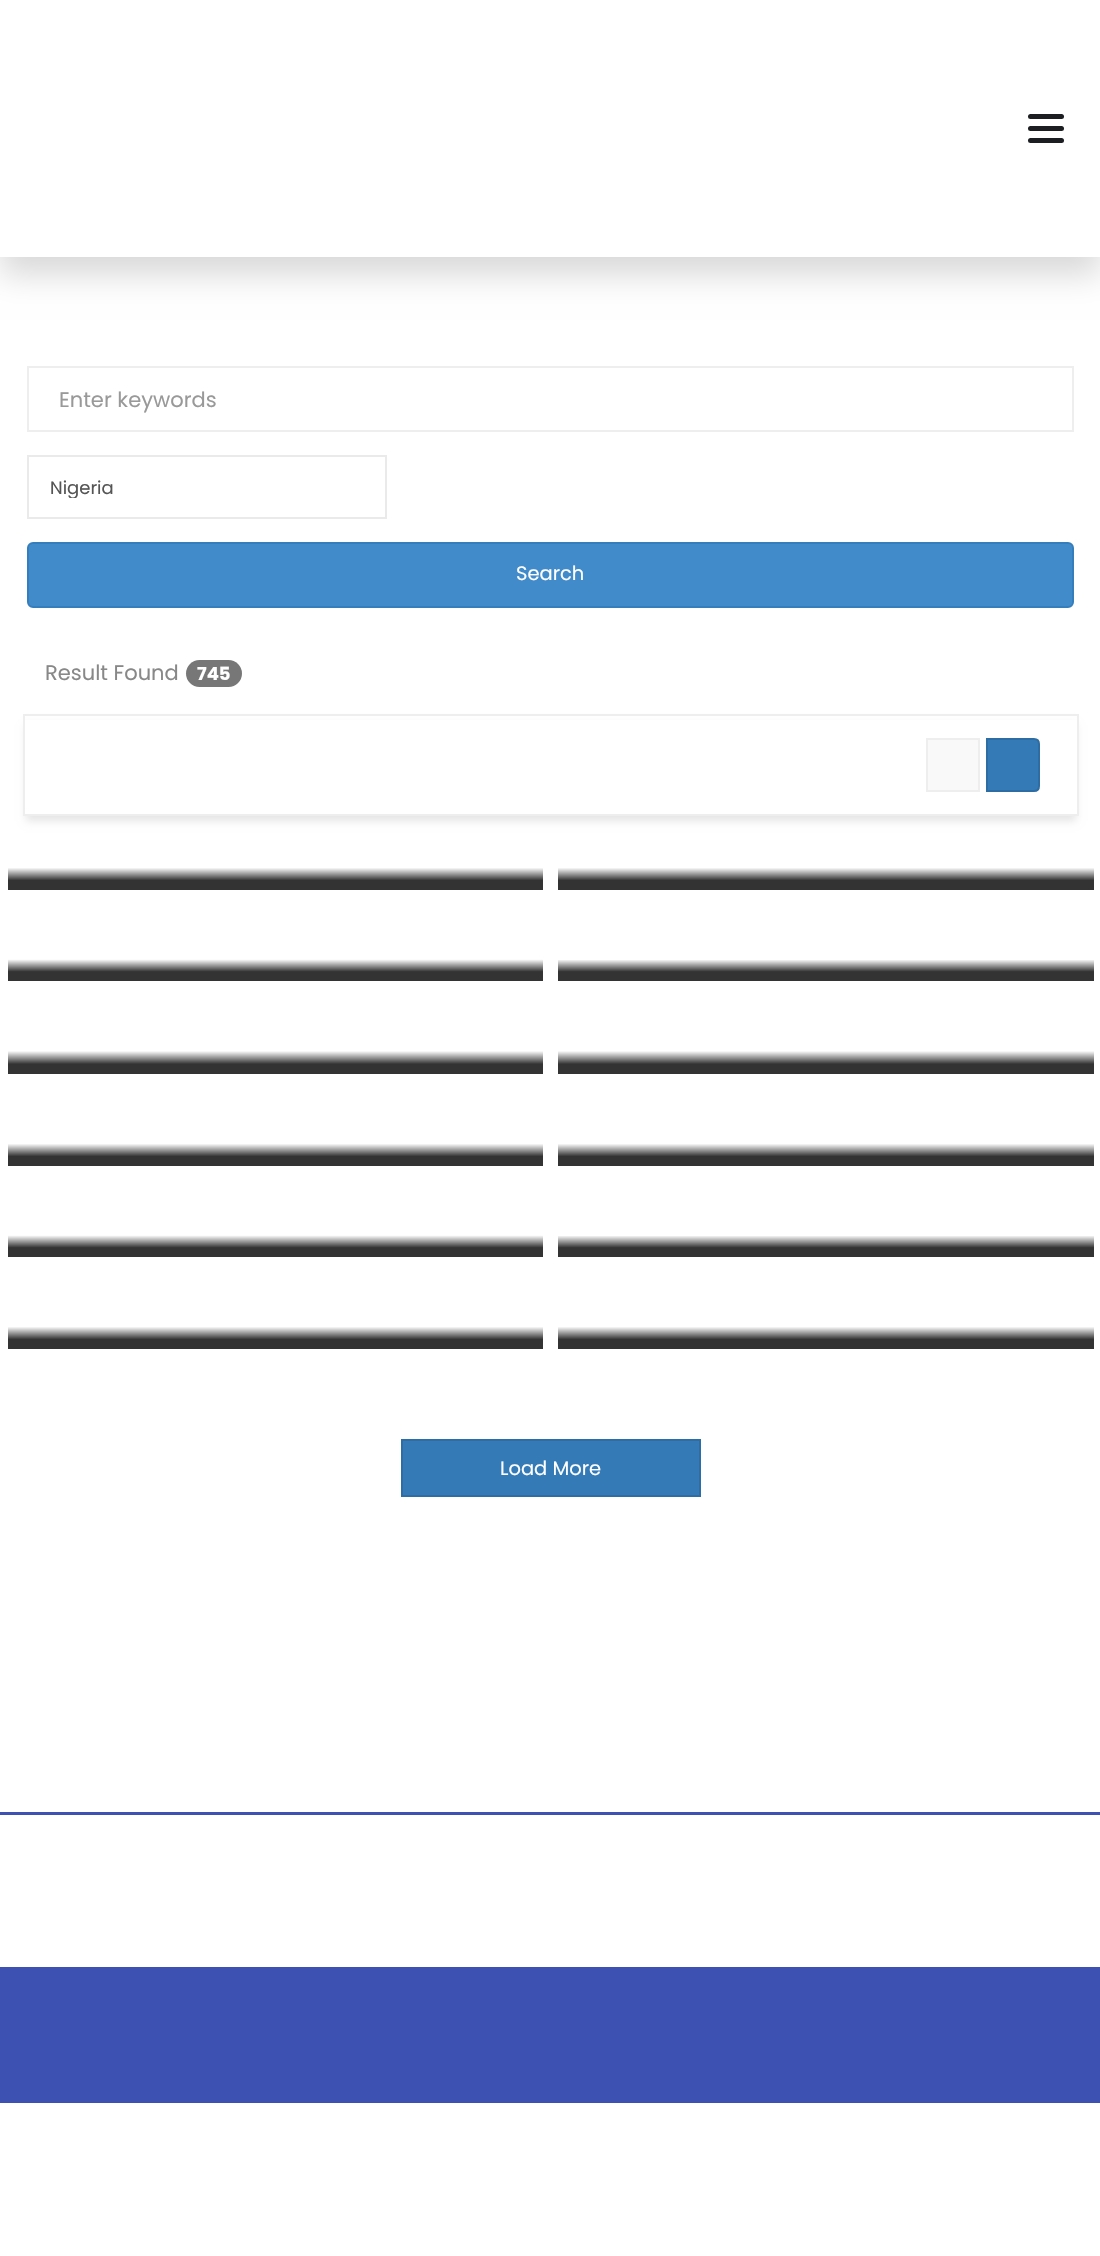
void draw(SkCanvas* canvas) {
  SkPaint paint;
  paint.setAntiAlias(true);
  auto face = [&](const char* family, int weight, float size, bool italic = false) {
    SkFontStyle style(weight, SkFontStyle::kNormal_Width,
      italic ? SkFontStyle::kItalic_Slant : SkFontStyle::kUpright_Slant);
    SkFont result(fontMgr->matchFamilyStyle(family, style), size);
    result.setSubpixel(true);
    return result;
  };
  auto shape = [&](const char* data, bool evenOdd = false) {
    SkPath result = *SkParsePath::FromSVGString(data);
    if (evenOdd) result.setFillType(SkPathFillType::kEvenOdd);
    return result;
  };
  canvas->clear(0xffffffff);
  paint.setColor(0x26000000);
  paint.setMaskFilter(SkMaskFilter::MakeBlur(kNormal_SkBlurStyle, 15));
  canvas->drawRect(SkRect::MakeXYWH(0, 18, 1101, 257), paint);
  paint.setMaskFilter(nullptr);
  paint.setColor(0xffffffff);
  canvas->drawRect(SkRect::MakeXYWH(0, 0, 1100, 257), paint);
  paint.setColor(0xff1c1e21);
  canvas->drawRoundRect(SkRect::MakeXYWH(1028, 114, 36, 5), 2.5f, 2.5f, paint);
  canvas->drawRoundRect(SkRect::MakeXYWH(1028, 126, 36, 5), 2.5f, 2.5f, paint);
  canvas->drawRoundRect(SkRect::MakeXYWH(1028, 138, 36, 5), 2.5f, 2.5f, paint);
  paint.setStroke(true);
  paint.setStrokeWidth(2);
  paint.setColor(0xffeeeeee);
  canvas->drawRect(SkRect::MakeXYWH(28, 367, 1045, 64), paint);
  paint.setColor(0xffeaeaea);
  canvas->drawRect(SkRect::MakeXYWH(28, 456, 358, 62), paint);
  paint.setStroke(false);
  paint.setColor(0xff428bca);
  canvas->drawRoundRect(SkRect::MakeXYWH(28, 543, 1045, 64), 5, 5, paint);
  paint.setStroke(true);
  paint.setColor(0xff357ebd);
  canvas->drawRoundRect(SkRect::MakeXYWH(28, 543, 1045, 64), 5, 5, paint);
  paint.setStroke(false);
  paint.setColor(0xff777777);
  canvas->drawRoundRect(SkRect::MakeXYWH(186, 660, 56, 27), 13.5f, 13.5f, paint);
  paint.setColor(0x1a000000);
  paint.setMaskFilter(SkMaskFilter::MakeBlur(kNormal_SkBlurStyle, 4));
  canvas->drawRect(SkRect::MakeXYWH(26, 725, 1050, 96), paint);
  paint.setMaskFilter(nullptr);
  paint.setColor(0xffffffff);
  canvas->drawRect(SkRect::MakeXYWH(25, 720, 1052, 94), paint);
  paint.setStroke(true);
  paint.setColor(0xffeeeeee);
  canvas->drawRect(SkRect::MakeXYWH(24, 715, 1054, 100), paint);
  paint.setStroke(false);
  paint.setColor(0xfff9f9f9);
  canvas->drawRect(SkRect::MakeXYWH(927, 739, 52, 52), paint);
  paint.setStroke(true);
  paint.setColor(0xffeeeeee);
  canvas->drawRect(SkRect::MakeXYWH(927, 739, 52, 52), paint);
  paint.setStroke(false);
  paint.setColor(0xff337ab7);
  canvas->drawPath(shape("M987 739H1034C1037 739 1039 741 1039 744V786C1039 789 1037 791 1034 791H987Z"), paint);
  paint.setStroke(true);
  paint.setColor(0xff2e6da4);
  canvas->drawPath(shape("M987 739H1034C1037 739 1039 741 1039 744V786C1039 789 1037 791 1034 791H987Z"), paint);
  paint.setStroke(false);
  {
    const SkColor colors[] = {0xffffffff, 0xff333333};
    const float stops[] = {0.3f, 0.7f};
    const SkPoint ends[] = {{275, 858}, {275, 890}};
    paint.setShader(SkGradientShader::MakeLinear(ends, colors, stops, 2, SkTileMode::kClamp));
    paint.setAlpha(255);
  }
  canvas->drawRect(SkRect::MakeXYWH(8, 868, 535, 22), paint);
  {
    const SkColor colors[] = {0x00000000, 0xcc000000};
    const float stops[] = {0.3f, 0.7f};
    const SkPoint ends[] = {{826, 858}, {826, 890}};
    paint.setShader(SkGradientShader::MakeLinear(ends, colors, stops, 2, SkTileMode::kClamp));
    paint.setAlpha(255);
  }
  canvas->drawRect(SkRect::MakeXYWH(558, 868, 536, 22), paint);
  {
    const SkColor colors[] = {0xffffffff, 0xff333333};
    const float stops[] = {0.3f, 0.7f};
    const SkPoint ends[] = {{275, 950}, {275, 981}};
    paint.setShader(SkGradientShader::MakeLinear(ends, colors, stops, 2, SkTileMode::kClamp));
    paint.setAlpha(255);
  }
  canvas->drawRect(SkRect::MakeXYWH(8, 959, 535, 22), paint);
  {
    const SkColor colors[] = {0x00000000, 0xcc000000};
    const float stops[] = {0.3f, 0.7f};
    const SkPoint ends[] = {{826, 950}, {826, 981}};
    paint.setShader(SkGradientShader::MakeLinear(ends, colors, stops, 2, SkTileMode::kClamp));
    paint.setAlpha(255);
  }
  canvas->drawRect(SkRect::MakeXYWH(558, 960, 536, 21), paint);
  {
    const SkColor colors[] = {0xffffffff, 0xff333333};
    const float stops[] = {0.3f, 0.7f};
    const SkPoint ends[] = {{275, 1041}, {275, 1074}};
    paint.setShader(SkGradientShader::MakeLinear(ends, colors, stops, 2, SkTileMode::kClamp));
    paint.setAlpha(255);
  }
  canvas->drawRect(SkRect::MakeXYWH(8, 1051, 535, 23), paint);
  {
    const SkColor colors[] = {0x00000000, 0xcc000000};
    const float stops[] = {0.3f, 0.7f};
    const SkPoint ends[] = {{826, 1041}, {826, 1074}};
    paint.setShader(SkGradientShader::MakeLinear(ends, colors, stops, 2, SkTileMode::kClamp));
    paint.setAlpha(255);
  }
  canvas->drawRect(SkRect::MakeXYWH(558, 1051, 536, 23), paint);
  {
    const SkColor colors[] = {0xffffffff, 0xff333333};
    const float stops[] = {0.3f, 0.7f};
    const SkPoint ends[] = {{275, 1134}, {275, 1166}};
    paint.setShader(SkGradientShader::MakeLinear(ends, colors, stops, 2, SkTileMode::kClamp));
    paint.setAlpha(255);
  }
  canvas->drawRect(SkRect::MakeXYWH(8, 1144, 535, 22), paint);
  {
    const SkColor colors[] = {0x00000000, 0xcc000000};
    const float stops[] = {0.3f, 0.7f};
    const SkPoint ends[] = {{826, 1134}, {826, 1166}};
    paint.setShader(SkGradientShader::MakeLinear(ends, colors, stops, 2, SkTileMode::kClamp));
    paint.setAlpha(255);
  }
  canvas->drawRect(SkRect::MakeXYWH(558, 1144, 536, 22), paint);
  {
    const SkColor colors[] = {0xffffffff, 0xff333333};
    const float stops[] = {0.3f, 0.7f};
    const SkPoint ends[] = {{275, 1226}, {275, 1257}};
    paint.setShader(SkGradientShader::MakeLinear(ends, colors, stops, 2, SkTileMode::kClamp));
    paint.setAlpha(255);
  }
  canvas->drawRect(SkRect::MakeXYWH(8, 1235, 535, 22), paint);
  {
    const SkColor colors[] = {0x00000000, 0xcc000000};
    const float stops[] = {0.3f, 0.7f};
    const SkPoint ends[] = {{826, 1226}, {826, 1257}};
    paint.setShader(SkGradientShader::MakeLinear(ends, colors, stops, 2, SkTileMode::kClamp));
    paint.setAlpha(255);
  }
  canvas->drawRect(SkRect::MakeXYWH(558, 1236, 536, 21), paint);
  {
    const SkColor colors[] = {0xffffffff, 0xff333333};
    const float stops[] = {0.3f, 0.7f};
    const SkPoint ends[] = {{275, 1317}, {275, 1349}};
    paint.setShader(SkGradientShader::MakeLinear(ends, colors, stops, 2, SkTileMode::kClamp));
    paint.setAlpha(255);
  }
  canvas->drawRect(SkRect::MakeXYWH(8, 1327, 535, 22), paint);
  {
    const SkColor colors[] = {0x00000000, 0xcc000000};
    const float stops[] = {0.3f, 0.7f};
    const SkPoint ends[] = {{826, 1317}, {826, 1349}};
    paint.setShader(SkGradientShader::MakeLinear(ends, colors, stops, 2, SkTileMode::kClamp));
    paint.setAlpha(255);
  }
  canvas->drawRect(SkRect::MakeXYWH(558, 1327, 536, 22), paint);
  paint.setShader(nullptr);
  paint.setColor(0xff337ab7);
  canvas->drawRect(SkRect::MakeXYWH(402, 1440, 298, 56), paint);
  paint.setStroke(true);
  paint.setColor(0xff2e6da4);
  canvas->drawRect(SkRect::MakeXYWH(402, 1440, 298, 56), paint);
  paint.setStroke(false);
  paint.setColor(0xff3d51b2);
  canvas->drawRect(SkRect::MakeXYWH(0, 1812, 1100, 3), paint);
  canvas->drawRect(SkRect::MakeXYWH(0, 1967, 1100, 136), paint);
  auto f0 = face("Poppins", 400, 21);
  paint.setColor(0xff999999);
  canvas->drawString("Enter keywords", 59, 407, f0, paint);
  canvas->save();
  canvas->clipRect(SkRect::MakeXYWH(50, 477, 315, 21));
  auto f1 = face("Poppins", 400, 18);
  paint.setColor(0xff555555);
  canvas->drawString("Nigeria", 50, 494, f1, paint);
  canvas->restore();
  auto f2 = face("Poppins", 400, 19.5f);
  paint.setColor(0xffffffff);
  canvas->drawString("Search", 516, 580, f2, paint);
  paint.setColor(0xff888888);
  canvas->drawString("Result Found", 45, 680, f0, paint);
  auto f3 = face("Poppins", 700, 18);
  paint.setColor(0xffffffff);
  canvas->drawString("745", 197, 680, f3, paint);
  canvas->drawString("Load More", 500, 1475, f2, paint);
}
